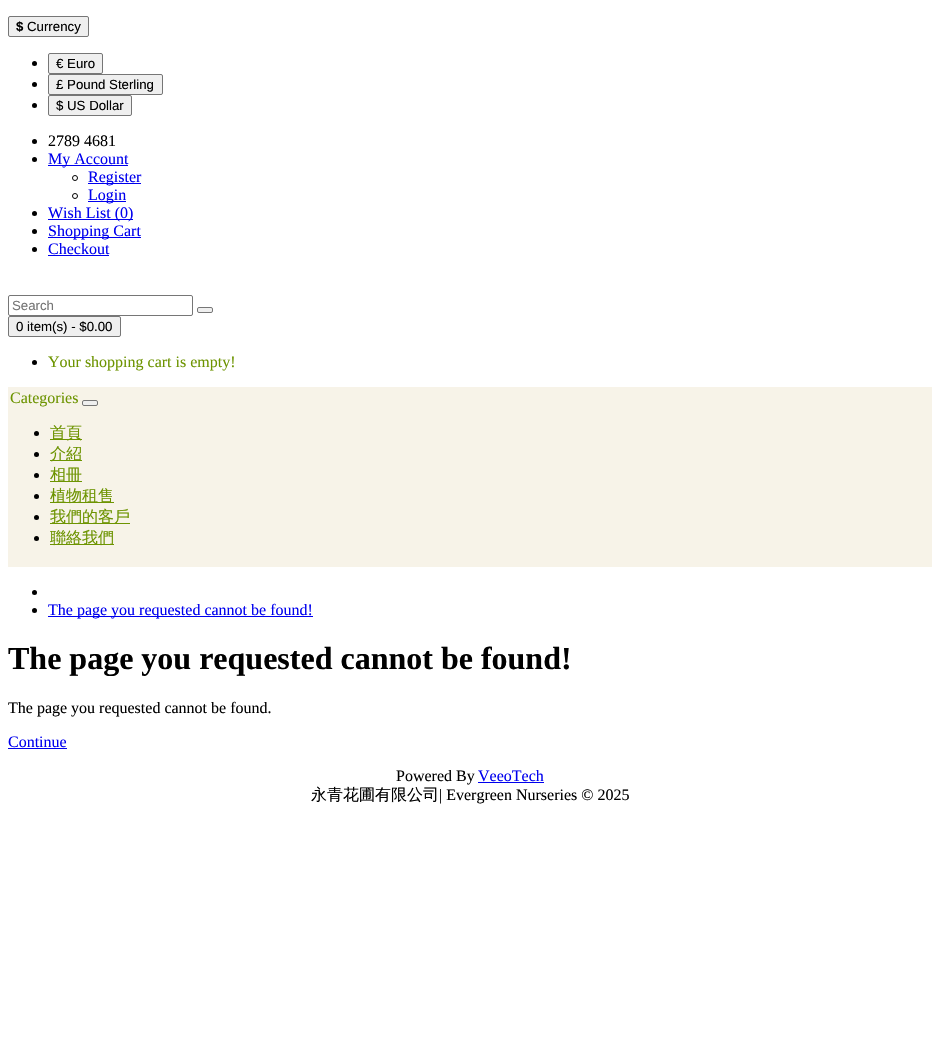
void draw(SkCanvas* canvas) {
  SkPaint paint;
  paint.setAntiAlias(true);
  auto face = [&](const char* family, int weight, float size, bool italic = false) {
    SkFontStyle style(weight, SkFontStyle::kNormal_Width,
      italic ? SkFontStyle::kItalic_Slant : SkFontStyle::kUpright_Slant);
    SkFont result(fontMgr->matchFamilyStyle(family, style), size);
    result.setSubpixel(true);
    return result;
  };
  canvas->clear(0xffffffff);
  paint.setColor(0xffefefef);
  canvas->drawRoundRect(SkRect::MakeXYWH(8.5f, 16.5f, 80, 20), 1.5f, 1.5f, paint);
  paint.setStroke(true);
  paint.setStrokeWidth(1);
  paint.setColor(0xff767676);
  canvas->drawRoundRect(SkRect::MakeXYWH(8.5f, 16.5f, 80, 20), 1.5f, 1.5f, paint);
  paint.setStroke(false);
  paint.setColor(0xff000000);
  canvas->drawCircle(34.5f, 63.5f, 2.5f, paint);
  paint.setColor(0xffefefef);
  canvas->drawRoundRect(SkRect::MakeXYWH(48.5f, 53.5f, 54, 20), 1.5f, 1.5f, paint);
  paint.setStroke(true);
  paint.setColor(0xff767676);
  canvas->drawRoundRect(SkRect::MakeXYWH(48.5f, 53.5f, 54, 20), 1.5f, 1.5f, paint);
  paint.setStroke(false);
  paint.setColor(0xff000000);
  canvas->drawCircle(34.5f, 84.5f, 2.5f, paint);
  paint.setColor(0xffefefef);
  canvas->drawRoundRect(SkRect::MakeXYWH(48.5f, 74.5f, 114, 20), 1.5f, 1.5f, paint);
  paint.setStroke(true);
  paint.setColor(0xff767676);
  canvas->drawRoundRect(SkRect::MakeXYWH(48.5f, 74.5f, 114, 20), 1.5f, 1.5f, paint);
  paint.setStroke(false);
  paint.setColor(0xff000000);
  canvas->drawCircle(34.5f, 105.5f, 2.5f, paint);
  paint.setColor(0xffefefef);
  canvas->drawRoundRect(SkRect::MakeXYWH(48.5f, 95.5f, 83, 20), 1.5f, 1.5f, paint);
  paint.setStroke(true);
  paint.setColor(0xff767676);
  canvas->drawRoundRect(SkRect::MakeXYWH(48.5f, 95.5f, 83, 20), 1.5f, 1.5f, paint);
  paint.setStroke(false);
  paint.setColor(0xff000000);
  canvas->drawCircle(34.5f, 141.5f, 2.5f, paint);
  canvas->drawCircle(34.5f, 159.5f, 2.5f, paint);
  paint.setColor(0xff0000ee);
  canvas->drawRect(SkRect::MakeXYWH(48, 165, 80, 1), paint);
  paint.setStroke(true);
  paint.setColor(0xff000000);
  canvas->drawCircle(75, 178, 2.5f, paint);
  paint.setStroke(false);
  paint.setColor(0xff0000ee);
  canvas->drawRect(SkRect::MakeXYWH(88, 183, 53, 1), paint);
  paint.setStroke(true);
  paint.setColor(0xff000000);
  canvas->drawCircle(75, 196, 2.5f, paint);
  paint.setStroke(false);
  paint.setColor(0xff0000ee);
  canvas->drawRect(SkRect::MakeXYWH(88, 201, 38, 1), paint);
  paint.setColor(0xff000000);
  canvas->drawCircle(34.5f, 213.5f, 2.5f, paint);
  paint.setColor(0xff0000ee);
  canvas->drawRect(SkRect::MakeXYWH(48, 219, 85, 1), paint);
  paint.setColor(0xff000000);
  canvas->drawCircle(34.5f, 231.5f, 2.5f, paint);
  paint.setColor(0xff0000ee);
  canvas->drawRect(SkRect::MakeXYWH(48, 237, 93, 1), paint);
  paint.setColor(0xff000000);
  canvas->drawCircle(34.5f, 249.5f, 2.5f, paint);
  paint.setColor(0xff0000ee);
  canvas->drawRect(SkRect::MakeXYWH(48, 255, 61, 1), paint);
  paint.setStroke(true);
  paint.setColor(0xff767676);
  canvas->drawRoundRect(SkRect::MakeXYWH(8.5f, 295.5f, 184, 20), 1.5f, 1.5f, paint);
  paint.setStroke(false);
  paint.setColor(0xffefefef);
  canvas->drawRoundRect(SkRect::MakeXYWH(197.5f, 307.5f, 15, 5), 1.5f, 1.5f, paint);
  paint.setStroke(true);
  paint.setColor(0xff767676);
  canvas->drawRoundRect(SkRect::MakeXYWH(197.5f, 307.5f, 15, 5), 1.5f, 1.5f, paint);
  paint.setStroke(false);
  paint.setColor(0xffefefef);
  canvas->drawRoundRect(SkRect::MakeXYWH(8.5f, 316.5f, 112, 20), 1.5f, 1.5f, paint);
  paint.setStroke(true);
  paint.setColor(0xff767676);
  canvas->drawRoundRect(SkRect::MakeXYWH(8.5f, 316.5f, 112, 20), 1.5f, 1.5f, paint);
  paint.setStroke(false);
  paint.setColor(0xff000000);
  canvas->drawCircle(34.5f, 362.5f, 2.5f, paint);
  paint.setColor(0xfff7f3e8);
  canvas->drawRect(SkRect::MakeXYWH(8, 387, 924, 180), paint);
  paint.setColor(0xffefefef);
  canvas->drawRoundRect(SkRect::MakeXYWH(82.5f, 400.5f, 15, 5), 1.5f, 1.5f, paint);
  paint.setStroke(true);
  paint.setColor(0xff767676);
  canvas->drawRoundRect(SkRect::MakeXYWH(82.5f, 400.5f, 15, 5), 1.5f, 1.5f, paint);
  paint.setStroke(false);
  paint.setColor(0xff000000);
  canvas->drawCircle(36.5f, 433.5f, 2.5f, paint);
  paint.setColor(0xff6d9401);
  canvas->drawRect(SkRect::MakeXYWH(50, 439, 32, 1), paint);
  paint.setColor(0xff000000);
  canvas->drawCircle(36.5f, 454.5f, 2.5f, paint);
  paint.setColor(0xff6d9401);
  canvas->drawRect(SkRect::MakeXYWH(50, 460, 32, 1), paint);
  paint.setColor(0xff000000);
  canvas->drawCircle(36.5f, 475.5f, 2.5f, paint);
  paint.setColor(0xff6d9401);
  canvas->drawRect(SkRect::MakeXYWH(50, 481, 32, 1), paint);
  paint.setColor(0xff000000);
  canvas->drawCircle(36.5f, 496.5f, 2.5f, paint);
  paint.setColor(0xff6d9401);
  canvas->drawRect(SkRect::MakeXYWH(50, 502, 64, 1), paint);
  paint.setColor(0xff000000);
  canvas->drawCircle(36.5f, 517.5f, 2.5f, paint);
  paint.setColor(0xff6d9401);
  canvas->drawRect(SkRect::MakeXYWH(50, 523, 80, 1), paint);
  paint.setColor(0xff000000);
  canvas->drawCircle(36.5f, 538.5f, 2.5f, paint);
  paint.setColor(0xff6d9401);
  canvas->drawRect(SkRect::MakeXYWH(50, 544, 64, 1), paint);
  paint.setColor(0xff000000);
  canvas->drawCircle(34.5f, 592.5f, 2.5f, paint);
  canvas->drawCircle(34.5f, 610.5f, 2.5f, paint);
  {
    const struct { float x, y, w, h; SkColor color; } items[] = {
      {48, 616, 265, 1, 0xff0000ee},
      {8, 748, 59, 1, 0xff0000ee},
      {478, 782, 66, 1, 0xff0000ee},
    };
    for (auto [x, y, w, h, color] : items) {
      paint.setColor(color);
      canvas->drawRect(SkRect::MakeXYWH(x, y, w, h), paint);
    }
  }
  auto f0 = face("Liberation Sans", 700, 13.25f);
  paint.setColor(0xff000000);
  canvas->drawString("$", 16, 31, f0, paint);
  auto f1 = face("Liberation Sans", 400, 13.25f);
  {
    const struct { const char* s; float x, y; } items[] = {
      {"Currency", 27, 31},
      {"€ Euro", 56, 68},
      {"£ Pound Sterling", 56, 89},
      {"$ US Dollar", 56, 110},
    };
    for (auto [s, x, y] : items) {
      canvas->drawString(s, x, y, f1, paint);
    }
  }
  auto f2 = face("Liberation Serif", 400, 16);
  canvas->drawString("2789 4681", 48, 146, f2, paint);
  paint.setColor(0xff0000ee);
  {
    const struct { const char* s; float x, y; } items[] = {
      {"My Account", 48, 164},
      {"Register", 88, 182},
      {"Login", 88, 200},
      {"Wish List (0)", 48, 218},
      {"Shopping Cart", 48, 236},
      {"Checkout", 48, 254},
    };
    for (auto [s, x, y] : items) {
      canvas->drawString(s, x, y, f2, paint);
    }
  }
  paint.setColor(0xff757575);
  canvas->drawString("Search", 12, 310, f1, paint);
  paint.setColor(0xff000000);
  canvas->drawString("0 item(s) - $0.00", 16, 331, f1, paint);
  paint.setColor(0xff6d9401);
  canvas->drawString("Your shopping cart is empty!", 48, 367, f2, paint);
  canvas->drawString("Categories", 10, 403, f2, paint);
  auto f3 = face("WenQuanYi Zen Hei", 500, 16);
  {
    const struct { const char* s; float x, y; } items[] = {
      {"首頁", 50, 438},
      {"介紹", 50, 459},
      {"相冊", 50, 480},
      {"植物租售", 50, 501},
      {"我們的客戶", 50, 522},
      {"聯絡我們", 50, 543},
    };
    for (auto [s, x, y] : items) {
      canvas->drawString(s, x, y, f3, paint);
    }
  }
  paint.setColor(0xff0000ee);
  canvas->drawString("The page you requested cannot be found!", 48, 615, f2, paint);
  auto f4 = face("Liberation Serif", 700, 32);
  paint.setColor(0xff000000);
  canvas->drawString("The page you requested cannot be found!", 8, 669, f4, paint);
  canvas->drawString("The page you requested cannot be found.", 8, 713, f2, paint);
  paint.setColor(0xff0000ee);
  canvas->drawString("Continue", 8, 747, f2, paint);
  paint.setColor(0xff000000);
  canvas->drawString("Powered By", 396, 781, f2, paint);
  paint.setColor(0xff0000ee);
  canvas->drawString("VeeoTech", 478, 781, f2, paint);
  paint.setColor(0xff000000);
  canvas->drawString("永青花圃有限公司", 311, 800, f3, paint);
  canvas->drawString("| Evergreen Nurseries © 2025", 439, 800, f2, paint);
}
